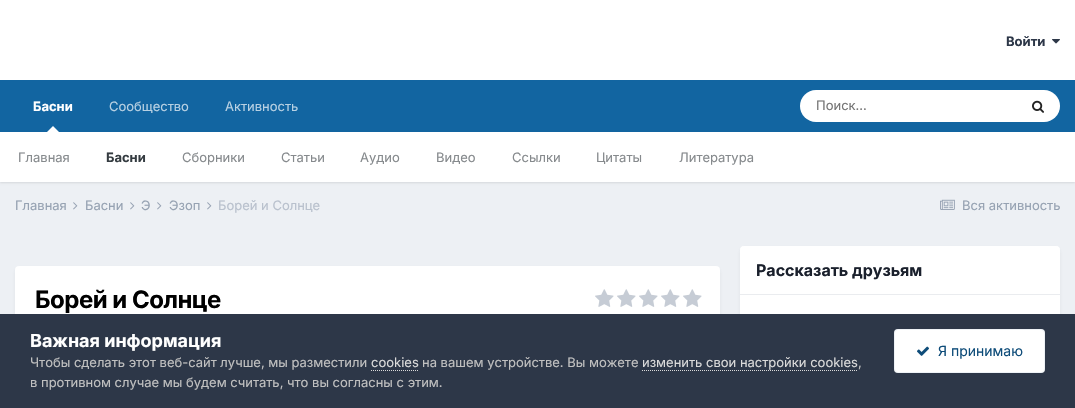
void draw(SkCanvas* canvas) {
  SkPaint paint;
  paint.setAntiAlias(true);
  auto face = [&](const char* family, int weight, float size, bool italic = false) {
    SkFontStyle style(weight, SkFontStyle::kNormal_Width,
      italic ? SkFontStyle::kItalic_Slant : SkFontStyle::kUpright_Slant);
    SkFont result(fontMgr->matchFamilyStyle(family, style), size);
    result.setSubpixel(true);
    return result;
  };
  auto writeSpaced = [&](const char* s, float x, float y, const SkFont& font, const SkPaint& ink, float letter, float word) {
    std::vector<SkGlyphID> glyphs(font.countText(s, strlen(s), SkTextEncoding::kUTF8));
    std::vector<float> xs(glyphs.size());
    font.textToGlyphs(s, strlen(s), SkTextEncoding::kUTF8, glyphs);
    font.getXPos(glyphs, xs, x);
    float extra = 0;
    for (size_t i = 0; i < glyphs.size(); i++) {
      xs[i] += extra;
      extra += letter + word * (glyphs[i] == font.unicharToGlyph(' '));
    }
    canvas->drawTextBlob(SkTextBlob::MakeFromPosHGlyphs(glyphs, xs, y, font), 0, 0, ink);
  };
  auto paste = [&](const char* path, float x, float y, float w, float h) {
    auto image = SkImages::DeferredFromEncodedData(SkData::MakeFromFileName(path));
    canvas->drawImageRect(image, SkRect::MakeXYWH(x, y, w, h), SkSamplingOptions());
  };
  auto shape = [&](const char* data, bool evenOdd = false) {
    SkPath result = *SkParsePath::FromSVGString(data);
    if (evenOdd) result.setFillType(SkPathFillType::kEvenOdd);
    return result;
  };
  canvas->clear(0xffedf0f4);
  paint.setColor(0xffffffff);
  canvas->drawRect(SkRect::MakeXYWH(0, 0, 1075, 80), paint);
  paste("img/1.png", 1052, 39, 8, 5);
  paint.setColor(0xff1265a1);
  canvas->drawRect(SkRect::MakeXYWH(0, 80, 1075, 52), paint);
  paint.setColor(0x1a000000);
  paint.setMaskFilter(SkMaskFilter::MakeBlur(kNormal_SkBlurStyle, 1));
  canvas->drawRect(SkRect::MakeXYWH(0, 133, 1075, 50), paint);
  paint.setMaskFilter(nullptr);
  paint.setColor(0xffffffff);
  canvas->drawPath(shape("M59 132H47L53 126Z"), paint);
  canvas->drawRoundRect(SkRect::MakeXYWH(800, 90, 260, 32), 16, 16, paint);
  paste("img/2.png", 1032, 100, 12, 13);
  canvas->drawRect(SkRect::MakeXYWH(0, 132, 1075, 50), paint);
  paste("img/3.png", 73, 202, 5, 8);
  paste("img/3.png", 130, 202, 5, 8);
  paste("img/3.png", 157, 202, 5, 8);
  paste("img/3.png", 207, 202, 5, 8);
  paste("img/4.png", 940, 199, 15, 11);
  paint.setColor(0x1a2d3748);
  paint.setMaskFilter(SkMaskFilter::MakeBlur(kNormal_SkBlurStyle, 2));
  canvas->drawRoundRect(SkRect::MakeXYWH(741, 249, 318, 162), 3, 3, paint);
  paint.setMaskFilter(nullptr);
  paint.setColor(0xffffffff);
  canvas->drawRoundRect(SkRect::MakeXYWH(740, 246, 320, 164), 4, 4, paint);
  canvas->drawPath(shape("M744 246H1056C1058 246 1060 248 1060 250V295H740V250C740 248 742 246 744 246Z"), paint);
  paint.setColor(0xffeaecef);
  canvas->drawRect(SkRect::MakeXYWH(740, 294, 320, 1), paint);
  paint.setColor(0x1a2d3748);
  paint.setMaskFilter(SkMaskFilter::MakeBlur(kNormal_SkBlurStyle, 2));
  canvas->drawRoundRect(SkRect::MakeXYWH(16, 269, 703, 138), 3, 3, paint);
  paint.setMaskFilter(nullptr);
  paint.setColor(0xffffffff);
  canvas->drawRoundRect(SkRect::MakeXYWH(15, 266, 705, 140), 4, 4, paint);
  paste("img/5.png", 595, 289, 19, 18);
  paste("img/5.png", 617, 289, 19, 18);
  paste("img/5.png", 639, 289, 19, 18);
  paste("img/5.png", 661, 289, 19, 18);
  paste("img/5.png", 683, 289, 19, 18);
  paint.setColor(0xff2d3748);
  canvas->drawRect(SkRect::MakeXYWH(0, 314, 1075, 94), paint);
  paint.setStroke(true);
  paint.setStrokeWidth(1);
  paint.setColor(0xffdadada);
  paint.setPathEffect(SkDashPathEffect::Make({{1, 1}}, 0));
  canvas->drawPath(shape("M371 370.5H419"), paint);
  paint.setPathEffect(nullptr);
  paint.setPathEffect(SkDashPathEffect::Make({{1, 1}}, 0));
  canvas->drawPath(shape("M642 370.5H858"), paint);
  paint.setPathEffect(nullptr);
  paint.setStroke(false);
  paint.setColor(0xffffffff);
  canvas->drawRoundRect(SkRect::MakeXYWH(894, 329, 151, 44), 4, 4, paint);
  paint.setStroke(true);
  paint.setColor(0x120e4c79);
  canvas->drawRoundRect(SkRect::MakeXYWH(894.5f, 329.5f, 150, 43), 3.5f, 3.5f, paint);
  paste("img/6.png", 917, 346, 12, 10);
  auto f0 = face("Inter", 700, 13);
  paint.setStroke(false);
  paint.setColor(0xff2d3748);
  canvas->drawString("Войти", 1006, 46, f0, paint);
  paint.setColor(0xffffffff);
  canvas->drawString("Басни", 33, 111, f0, paint);
  auto f1 = face("Inter", 400, 13);
  paint.setColor(0xff868a8d);
  canvas->drawString("Главная", 18, 162, f1, paint);
  paint.setColor(0xff353c41);
  canvas->drawString("Басни", 106, 162, f0, paint);
  paint.setColor(0xff868a8d);
  {
    const struct { const char* s; float x, y; } items[] = {
      {"Сборники", 182, 162},
      {"Статьи", 281, 162},
      {"Аудио", 360, 162},
      {"Видео", 436, 162},
      {"Ссылки", 512, 162},
      {"Цитаты", 596, 162},
      {"Литература", 679, 162},
    };
    for (auto [s, x, y] : items) {
      canvas->drawString(s, x, y, f1, paint);
    }
  }
  paint.setColor(0xffb8d1e3);
  canvas->drawString("Сообщество", 109, 111, f1, paint);
  canvas->drawString("Активность", 225, 111, f1, paint);
  paint.setColor(0xff757575);
  canvas->drawString("Поиск...", 816, 110, f1, paint);
  paint.setColor(0xff96a2b2);
  {
    const struct { const char* s; float x, y; } items[] = {
      {"Главная", 15, 210},
      {"Басни", 85, 210},
      {"Э", 141, 210},
      {"Эзоп", 169, 210},
    };
    for (auto [s, x, y] : items) {
      canvas->drawString(s, x, y, f1, paint);
    }
  }
  paint.setColor(0xffb9c1cd);
  canvas->drawString("Борей и Солнце", 218, 210, f1, paint);
  paint.setColor(0xff96a2b2);
  canvas->drawString("Вся активность", 962, 210, f1, paint);
  auto f2 = face("Inter", 700, 16);
  paint.setColor(0xff1a202c);
  canvas->drawString("Рассказать друзьям", 756, 276, f2, paint);
  auto f3 = face("Inter", 700, 24);
  paint.setColor(0xff000000);
  writeSpaced("Борей и Солнце", 35, 308, f3, paint, -0.5f, 0);
  auto f4 = face("Inter", 700, 18);
  paint.setColor(0xffffffff);
  canvas->drawString("Важная информация", 30, 347, f4, paint);
  paint.setColor(0xffc0c0c0);
  canvas->drawString("Чтобы сделать этот веб-сайт лучше, мы разместили", 30, 367, f1, paint);
  paint.setColor(0xffdadada);
  canvas->drawString("cookies", 371, 367, f1, paint);
  paint.setColor(0xffc0c0c0);
  canvas->drawString("на вашем устройстве. Вы можете", 422, 367, f1, paint);
  paint.setColor(0xffdadada);
  canvas->drawString("изменить свои настройки cookies", 642, 367, f1, paint);
  paint.setColor(0xffc0c0c0);
  canvas->drawString(",", 858, 367, f1, paint);
  canvas->drawString("в противном случае мы будем считать, что вы согласны с этим.", 30, 387, f1, paint);
  auto f5 = face("Inter", 400, 14);
  paint.setColor(0xff0e4c79);
  canvas->drawString("Я принимаю", 938, 356, f5, paint);
}
